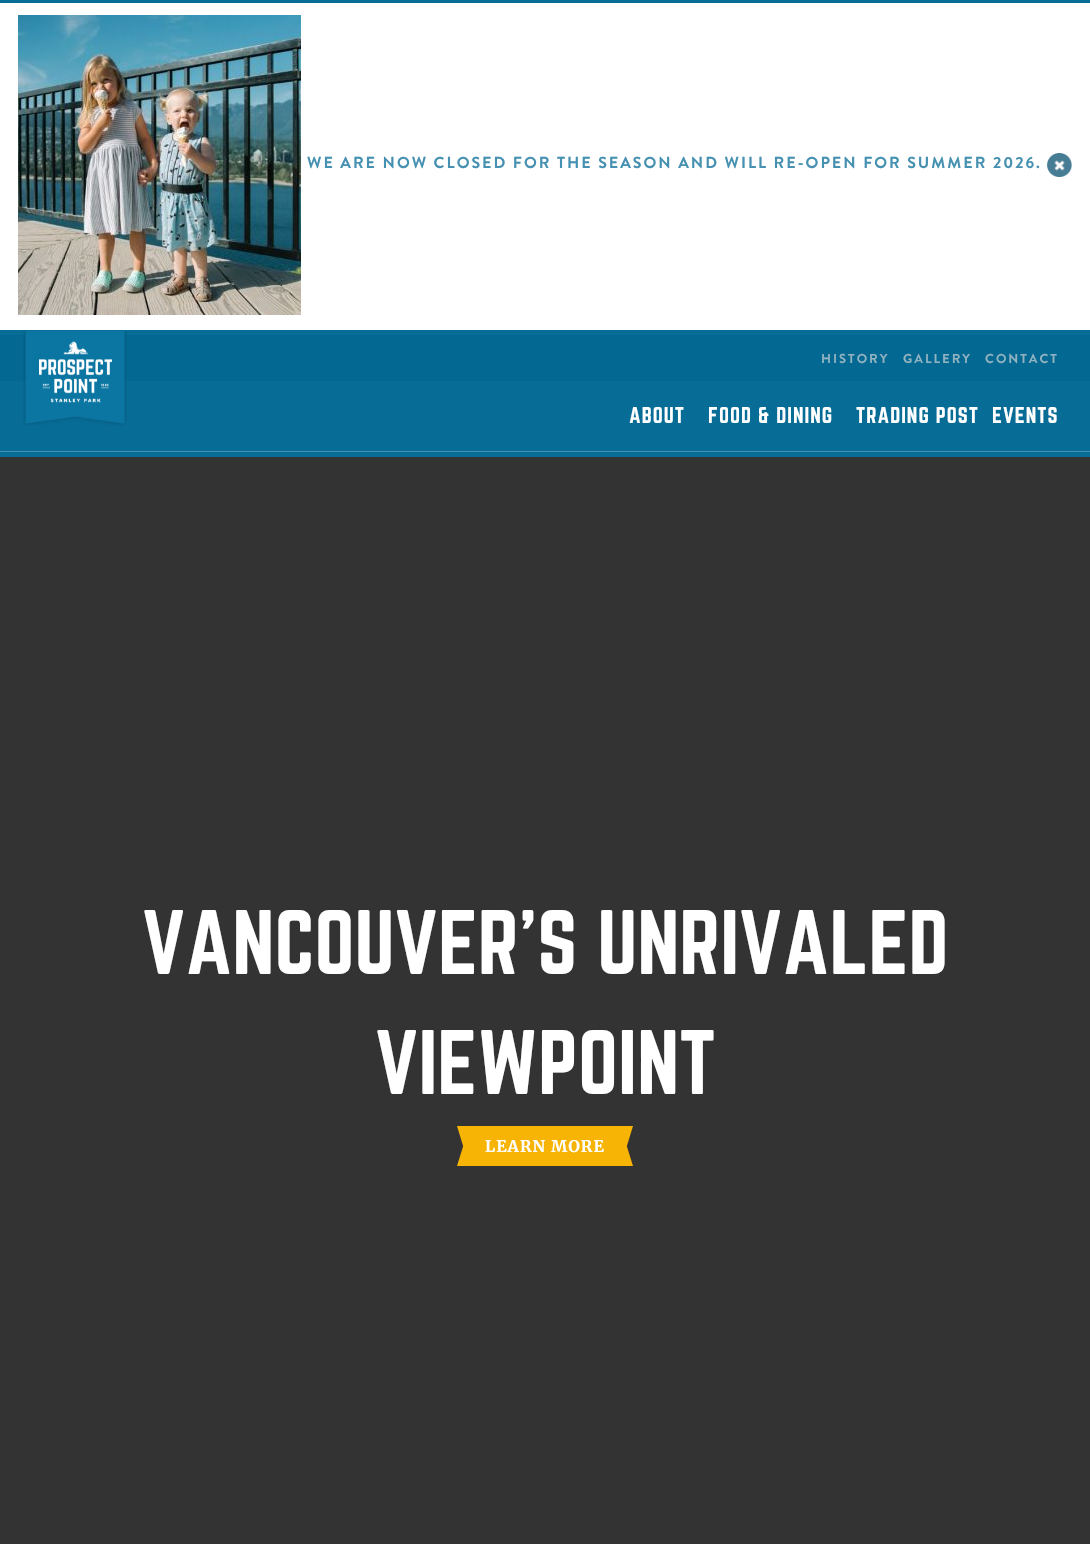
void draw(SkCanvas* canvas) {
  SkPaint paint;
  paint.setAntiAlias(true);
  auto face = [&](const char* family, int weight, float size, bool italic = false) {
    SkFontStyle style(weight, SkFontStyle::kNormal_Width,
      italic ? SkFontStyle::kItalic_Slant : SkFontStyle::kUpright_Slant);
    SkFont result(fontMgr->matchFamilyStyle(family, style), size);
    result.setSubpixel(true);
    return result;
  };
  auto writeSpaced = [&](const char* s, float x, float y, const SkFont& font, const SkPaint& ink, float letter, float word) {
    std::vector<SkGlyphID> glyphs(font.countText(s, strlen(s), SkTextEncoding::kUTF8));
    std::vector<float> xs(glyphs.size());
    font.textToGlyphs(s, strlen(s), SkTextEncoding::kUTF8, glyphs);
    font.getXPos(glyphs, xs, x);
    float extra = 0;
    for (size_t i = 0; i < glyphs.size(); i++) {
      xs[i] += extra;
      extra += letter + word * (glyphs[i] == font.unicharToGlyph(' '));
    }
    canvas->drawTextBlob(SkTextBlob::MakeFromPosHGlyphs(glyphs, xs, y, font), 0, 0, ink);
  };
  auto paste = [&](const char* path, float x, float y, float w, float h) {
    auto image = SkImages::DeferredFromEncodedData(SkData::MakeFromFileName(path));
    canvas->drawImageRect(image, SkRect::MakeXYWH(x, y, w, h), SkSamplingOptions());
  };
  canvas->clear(0xffffffff);
  paint.setColor(0xff076c96);
  canvas->drawRect(SkRect::MakeXYWH(0, 0, 1090, 3), paint);
  paste("img/1.png", 18, 15, 283, 300);
  paste("img/2.png", 1047, 153, 25, 24);
  {
    const struct { float x, y, w, h; SkColor color; } items[] = {
      {0, 330, 1090, 127, 0xff076c96},
      {0, 335, 1090, 46, 0xff036892},
      {0, 451, 1090, 1, 0xff4691b1},
    };
    for (auto [x, y, w, h, color] : items) {
      paint.setColor(color);
      canvas->drawRect(SkRect::MakeXYWH(x, y, w, h), paint);
    }
  }
  paste("img/3.png", 23, 331, 104, 95);
  paint.setColor(0xff333333);
  canvas->drawRect(SkRect::MakeXYWH(0, 457, 1090, 1087), paint);
  paste("img/4.png", 457, 1126, 176, 40);
  auto f0 = face("Brandon Grotesque", 700, 16);
  paint.setColor(0xff4691b1);
  writeSpaced("WE ARE NOW CLOSED FOR THE SEASON AND WILL RE-OPEN FOR SUMMER 2026.", 307, 168, f0, paint, 2, 0);
  auto f1 = face("Brandon Grotesque", 700, 13);
  paint.setColor(0xff91b3c1);
  {
    const struct { const char* s; float x, y; } items[] = {
      {"HISTORY", 821, 363},
      {"GALLERY", 903, 363},
      {"CONTACT", 985, 363},
    };
    for (auto [s, x, y] : items) {
      writeSpaced(s, x, y, f1, paint, 2, 0);
    }
  }
  auto f2 = face("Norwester", 400, 20);
  paint.setColor(0xffffffff);
  {
    const struct { const char* s; float x, y; } items[] = {
      {"ABOUT", 629, 423},
      {"FOOD & DINING", 708, 423},
      {"TRADING POST", 856, 423},
      {"EVENTS", 992, 423},
    };
    for (auto [s, x, y] : items) {
      writeSpaced(s, x, y, f2, paint, 1, 0);
    }
  }
  auto f3 = face("Norwester", 400, 80);
  canvas->drawString("VANCOUVER'S UNRIVALED", 142, 974, f3, paint);
  canvas->drawString("VIEWPOINT", 375, 1094, f3, paint);
  auto f4 = face("Merriweather", 700, 16);
  writeSpaced("LEARN MORE", 485, 1152, f4, paint, 1, 0);
}
